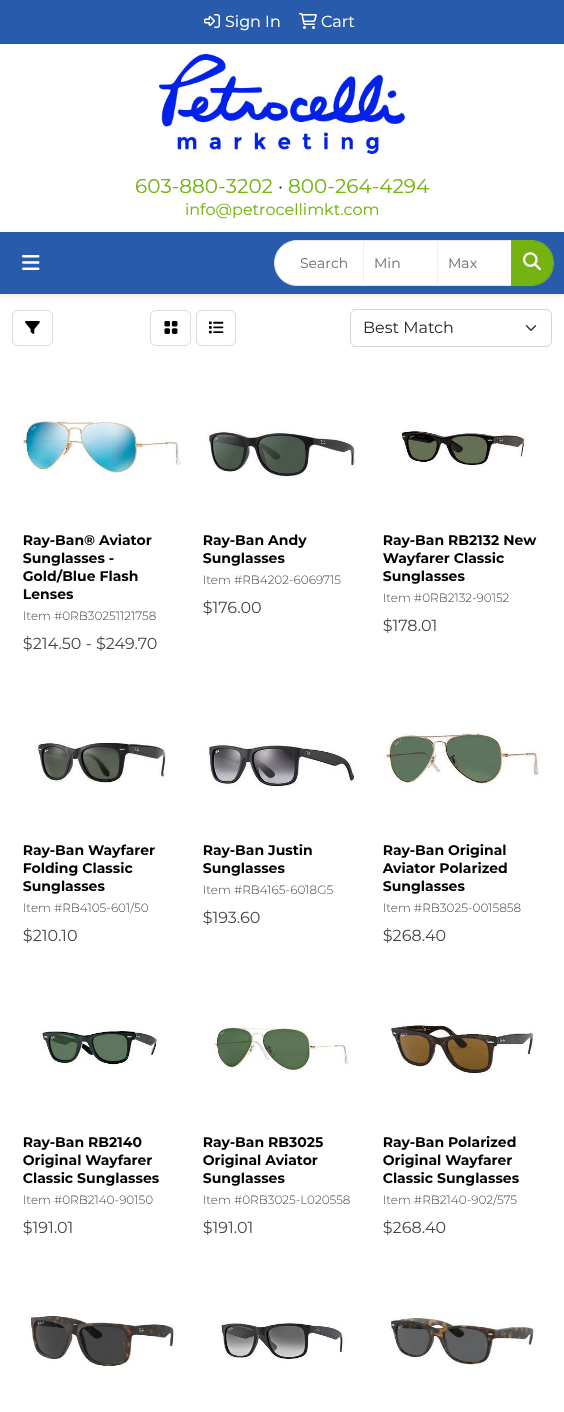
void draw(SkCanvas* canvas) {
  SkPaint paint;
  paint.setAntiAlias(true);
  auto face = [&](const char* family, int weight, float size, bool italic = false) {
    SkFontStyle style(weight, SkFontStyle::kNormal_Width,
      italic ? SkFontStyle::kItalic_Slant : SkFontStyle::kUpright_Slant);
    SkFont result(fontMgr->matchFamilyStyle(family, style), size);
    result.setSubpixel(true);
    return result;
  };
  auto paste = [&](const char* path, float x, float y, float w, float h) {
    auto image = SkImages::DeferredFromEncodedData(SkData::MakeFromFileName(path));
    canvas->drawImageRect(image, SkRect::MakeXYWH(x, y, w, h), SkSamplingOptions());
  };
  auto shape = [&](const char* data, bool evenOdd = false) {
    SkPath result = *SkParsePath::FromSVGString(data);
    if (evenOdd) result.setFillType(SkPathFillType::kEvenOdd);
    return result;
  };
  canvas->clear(0xffffffff);
  paint.setColor(0xff285bab);
  canvas->drawRect(SkRect::MakeXYWH(0, 0, 564, 44), paint);
  paste("img/1.png", 204, 14, 16, 14);
  paste("img/2.png", 299, 13, 18, 16);
  paste("img/3.png", 159, 54, 246, 100);
  paint.setColor(0x12000000);
  paint.setMaskFilter(SkMaskFilter::MakeBlur(kNormal_SkBlurStyle, 2));
  canvas->drawRect(SkRect::MakeXYWH(0, 234, 564, 62), paint);
  paint.setMaskFilter(nullptr);
  paint.setColor(0xff285bab);
  canvas->drawRect(SkRect::MakeXYWH(0, 232, 564, 62), paint);
  paste("img/4.png", 22, 255, 18, 15);
  paint.setColor(0xffffffff);
  canvas->drawPath(shape("M297 240.5H363.5V285.5H297C284.5 285.5 274.5 275.5 274.5 263C274.5 250.5 284.5 240.5 297 240.5Z"), paint);
  paint.setStroke(true);
  paint.setStrokeWidth(1);
  paint.setColor(0xffe4e4e4);
  canvas->drawPath(shape("M297 240.5H363.5V285.5H297C284.5 285.5 274.5 275.5 274.5 263C274.5 250.5 284.5 240.5 297 240.5Z"), paint);
  paint.setStroke(false);
  {
    const struct { float x, y, w, h; SkColor color; } items[] = {
      {364, 241, 73, 44, 0xffffffff},
      {363, 240, 149, 1, 0xffe4e4e4},
      {363, 285, 149, 1, 0xffe4e4e4},
      {363, 240, 1, 46, 0xffefefef},
      {438, 241, 73, 44, 0xffffffff},
      {437, 240, 1, 46, 0xffefefef},
    };
    for (auto [x, y, w, h, color] : items) {
      paint.setColor(color);
      canvas->drawRect(SkRect::MakeXYWH(x, y, w, h), paint);
    }
  }
  paint.setColor(0xff74b310);
  canvas->drawPath(shape("M511 241H531C543 241 553 251 553 263C553 275 543 285 531 285H511Z"), paint);
  canvas->drawPath(shape("M511 240H531C544 240 554 250 554 263C554 276 544 286 531 286H511ZM511 241H531C543 241 553 251 553 263C553 275 543 285 531 285H511Z", true), paint);
  paste("img/5.png", 523, 252, 18, 19);
  paste("img/6.png", 12, 309, 540, 1061);
  auto f0 = face("Montserrat", 400, 16);
  paint.setColor(0xffffffff);
  canvas->drawString("Sign In", 225, 27, f0, paint);
  canvas->drawString("Cart", 321, 27, f0, paint);
  auto f1 = face("Montserrat", 400, 20);
  paint.setColor(0xff74b310);
  canvas->drawString("603-880-3202", 135, 193, f1, paint);
  paint.setColor(0xff333333);
  canvas->drawString("·", 278, 193, f1, paint);
  paint.setColor(0xff74b310);
  canvas->drawString("800-264-4294", 288, 193, f1, paint);
  canvas->drawString("info@petrocellimkt.com", 185, 215, f0, paint);
  auto f2 = face("Montserrat", 400, 14);
  paint.setColor(0xff6c757d);
  {
    const struct { const char* s; float x, y; } items[] = {
      {"Search", 300, 268},
      {"Min", 374, 268},
      {"Max", 448, 268},
    };
    for (auto [s, x, y] : items) {
      canvas->drawString(s, x, y, f2, paint);
    }
  }
}
